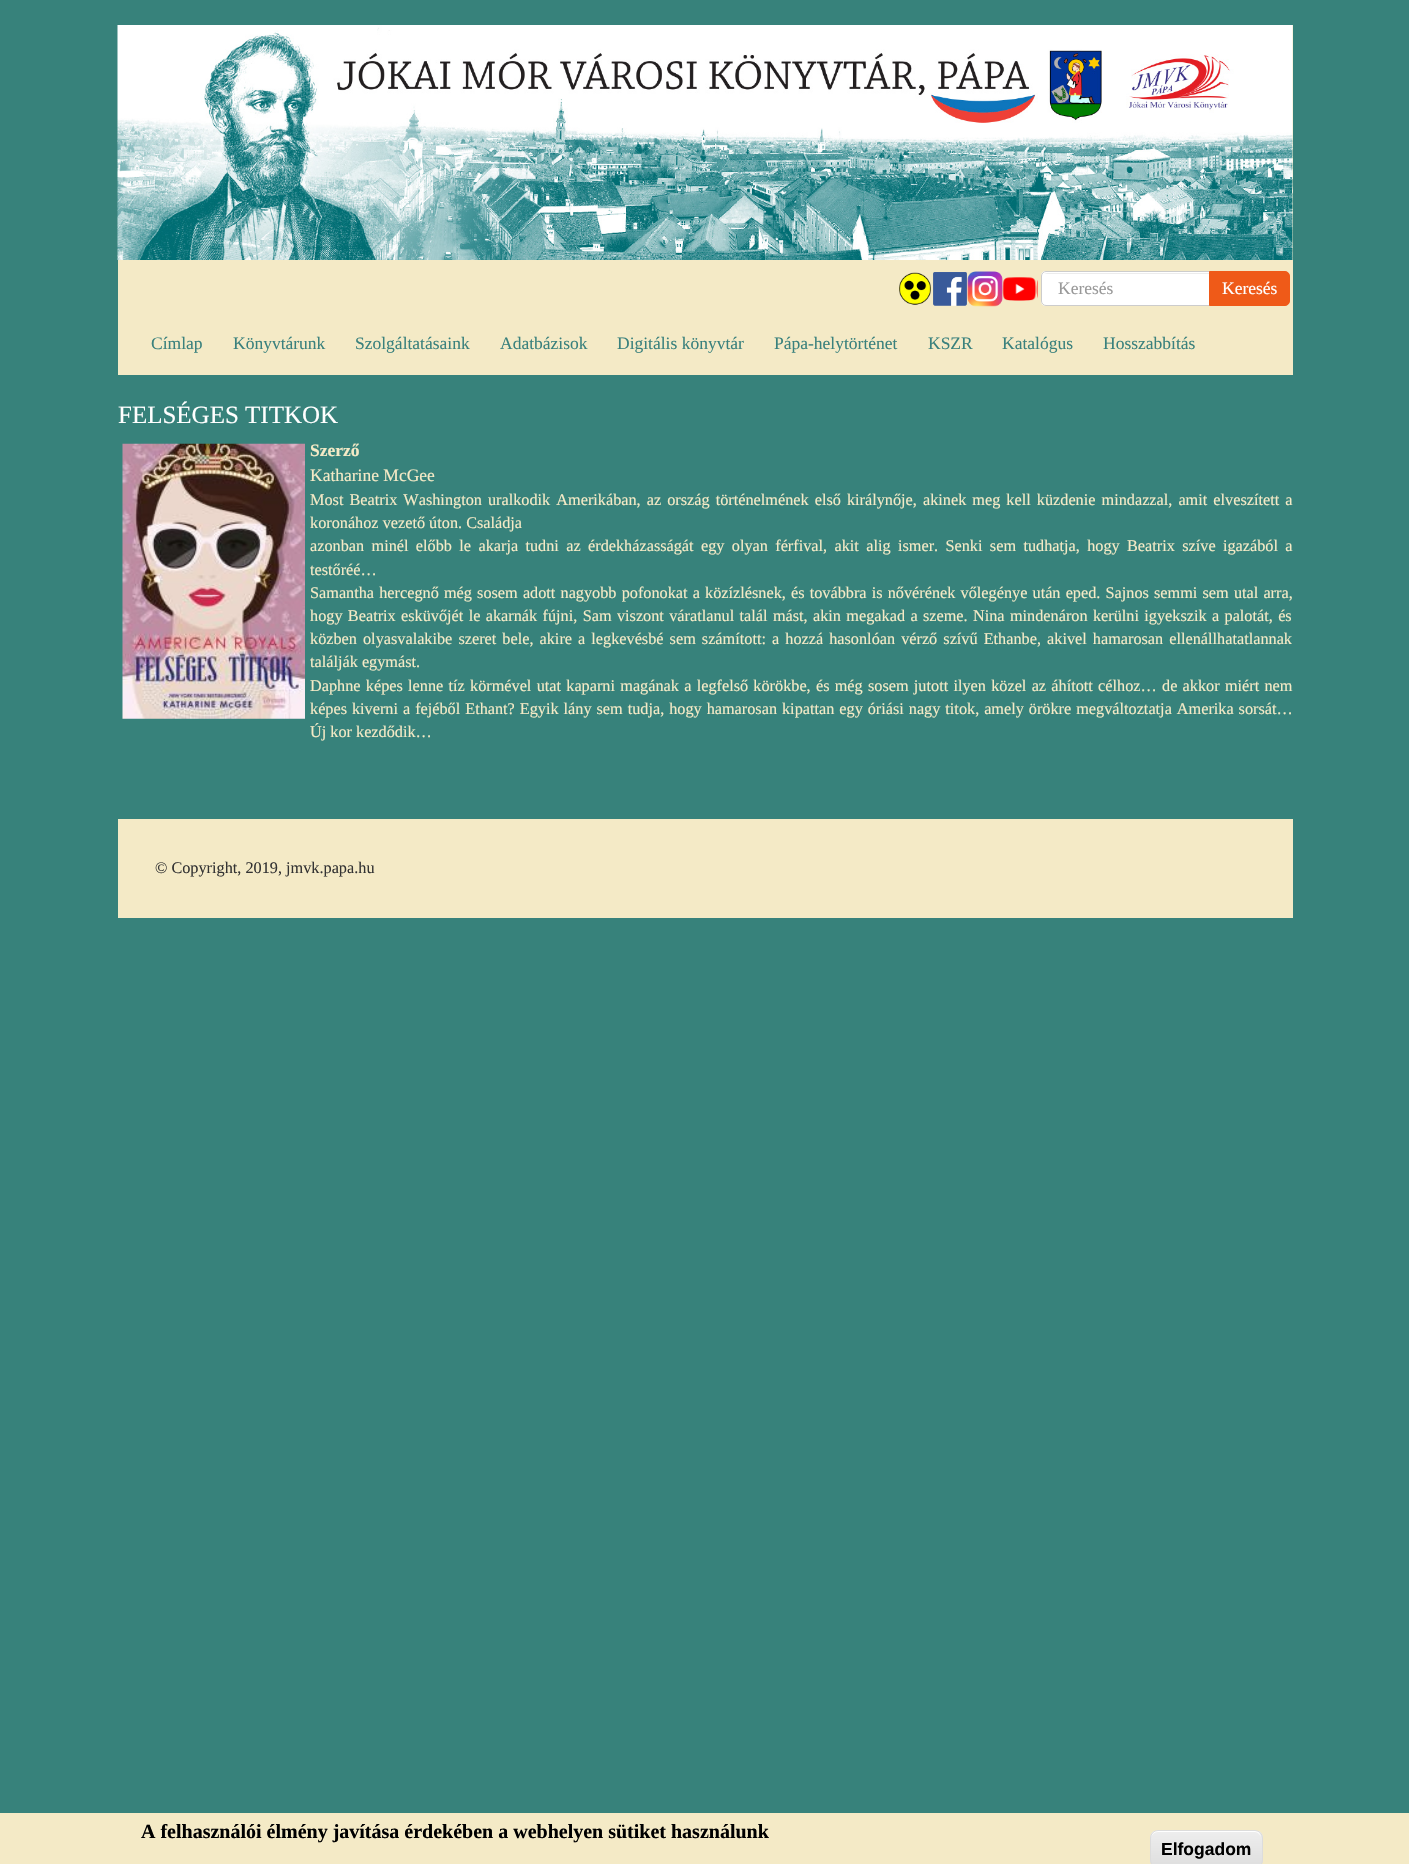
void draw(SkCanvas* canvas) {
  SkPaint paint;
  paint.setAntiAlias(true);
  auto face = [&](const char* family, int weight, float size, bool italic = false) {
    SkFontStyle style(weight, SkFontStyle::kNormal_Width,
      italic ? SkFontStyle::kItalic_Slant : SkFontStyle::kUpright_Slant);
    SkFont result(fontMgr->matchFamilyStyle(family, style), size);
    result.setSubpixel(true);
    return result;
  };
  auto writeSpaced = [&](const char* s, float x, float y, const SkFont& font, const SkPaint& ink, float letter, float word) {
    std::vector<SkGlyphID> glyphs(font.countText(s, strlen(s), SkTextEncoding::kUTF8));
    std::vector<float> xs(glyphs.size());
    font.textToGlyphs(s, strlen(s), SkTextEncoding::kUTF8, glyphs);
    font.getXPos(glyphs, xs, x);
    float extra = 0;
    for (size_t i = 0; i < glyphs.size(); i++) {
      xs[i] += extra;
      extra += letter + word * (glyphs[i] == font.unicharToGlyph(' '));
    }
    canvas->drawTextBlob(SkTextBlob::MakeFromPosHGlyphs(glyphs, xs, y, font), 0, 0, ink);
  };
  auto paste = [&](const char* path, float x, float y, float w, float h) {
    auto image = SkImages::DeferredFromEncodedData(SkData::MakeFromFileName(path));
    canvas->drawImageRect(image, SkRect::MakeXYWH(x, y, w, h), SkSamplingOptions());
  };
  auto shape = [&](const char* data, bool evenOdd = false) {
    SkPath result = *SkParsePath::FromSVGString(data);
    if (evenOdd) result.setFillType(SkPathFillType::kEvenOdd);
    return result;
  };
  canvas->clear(0xff37827b);
  paint.setColor(0xfff4eac6);
  canvas->drawRect(SkRect::MakeXYWH(118, 25, 1175, 350), paint);
  paste("img/1.png", 117, 25, 1176, 235);
  paste("img/2.png", 899, 272, 32, 33);
  paste("img/3.png", 933, 272, 34, 34);
  paste("img/4.png", 967, 271, 36, 36);
  paste("img/5.png", 1002, 277, 36, 24);
  paint.setColor(0xffffffff);
  canvas->drawPath(shape("M1046 271H1210V306H1046C1043 306 1041 304 1041 301V276C1041 273 1043 271 1046 271Z"), paint);
  paint.setColor(0xffececec);
  canvas->drawPath(shape("M1046 274H1209V273H1047L1044 274Z"), paint);
  paint.setStroke(true);
  paint.setStrokeWidth(1);
  paint.setColor(0xffcccccc);
  canvas->drawPath(shape("M1046 271.5H1209.5V305.5H1046C1043.5 305.5 1041.5 303.5 1041.5 301V276C1041.5 273.5 1043.5 271.5 1046 271.5Z"), paint);
  paint.setStroke(false);
  paint.setColor(0xffef5a18);
  canvas->drawPath(shape("M1209.5 271.5H1285C1287.5 271.5 1289.5 273.5 1289.5 276V301C1289.5 303.5 1287.5 305.5 1285 305.5H1209.5Z"), paint);
  paint.setStroke(true);
  canvas->drawPath(shape("M1209.5 271.5H1285C1287.5 271.5 1289.5 273.5 1289.5 276V301C1289.5 303.5 1287.5 305.5 1285 305.5H1209.5Z"), paint);
  paste("img/6.png", 122, 443, 183, 276);
  paint.setStroke(false);
  paint.setColor(0xfff4eac6);
  canvas->drawRect(SkRect::MakeXYWH(118, 819, 1175, 99), paint);
  canvas->drawRect(SkRect::MakeXYWH(0, 1813, 1409, 51), paint);
  canvas->save();
  canvas->clipPath(shape("M1158 1830H1255C1259.5 1830 1263 1833.5 1263 1838V1860C1263 1864.5 1259.5 1868 1255 1868H1158C1153.5 1868 1150 1864.5 1150 1860V1838C1150 1833.5 1153.5 1830 1158 1830Z"), true);
  {
    const SkColor colors[] = {0xffededed, 0xffdfdfdf};
    const float stops[] = {0.05f, 1};
    const SkPoint ends[] = {{1206, 1831}, {1206, 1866}};
    paint.setShader(SkGradientShader::MakeLinear(ends, colors, stops, 2, SkTileMode::kClamp));
    paint.setAlpha(255);
  }
  canvas->drawRect(SkRect::MakeXYWH(1150, 1831, 113, 33), paint);
  canvas->restore();
  paint.setShader(nullptr);
  paint.setColor(0xffffffff);
  canvas->drawPath(shape("M1158 1832H1255C1258 1832 1261 1835 1261 1839C1261 1827 1248 1831 1239 1831H1173C1164 1831 1151 1827 1151 1839C1151 1835 1154 1832 1158 1832Z"), paint);
  paint.setStroke(true);
  paint.setColor(0xffdcdcdc);
  canvas->drawRoundRect(SkRect::MakeXYWH(1150.5f, 1830.5f, 112, 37), 7.5f, 7.5f, paint);
  auto f0 = face("Liberation Serif", 400, 17.5f);
  paint.setStroke(false);
  paint.setColor(0xff999999);
  canvas->drawString("Keresés", 1058, 294, f0, paint);
  paint.setColor(0xffffffff);
  canvas->drawString("Keresés", 1222, 294, f0, paint);
  paint.setColor(0xff3a817d);
  {
    const struct { const char* s; float x, y; } items[] = {
      {"Címlap", 151, 349},
      {"Könyvtárunk", 233, 349},
      {"Szolgáltatásaink", 355, 349},
      {"Adatbázisok", 500, 349},
      {"Digitális könyvtár", 617, 349},
      {"Pápa-helytörténet", 774, 349},
      {"KSZR", 928, 349},
      {"Katalógus", 1002, 349},
      {"Hosszabbítás", 1103, 349},
    };
    for (auto [s, x, y] : items) {
      canvas->drawString(s, x, y, f0, paint);
    }
  }
  auto f1 = face("Liberation Serif", 400, 25);
  paint.setColor(0xffffffff);
  canvas->drawString("FELSÉGES TITKOK", 118, 423, f1, paint);
  auto f2 = face("Liberation Serif", 700, 17.5f);
  paint.setColor(0xfff4eac6);
  canvas->drawString("Szerző", 310, 456, f2, paint);
  canvas->drawString("Katharine McGee", 310, 481, f0, paint);
  auto f3 = face("Liberation Serif", 400, 16.25f);
  writeSpaced("Most Beatrix Washington uralkodik Amerikában, az ország történelmének első királynője, akinek meg kell küzdenie mindazzal, amit elveszített a", 310, 505, f3, paint, 0, 2);
  canvas->drawString("koronához vezető úton. Családja", 310, 528, f3, paint);
  writeSpaced("azonban minél előbb le akarja tudni az érdekházasságát egy olyan férfival, akit alig ismer. Senki sem tudhatja, hogy Beatrix szíve igazából a", 310, 551, f3, paint, 0, 3.3f);
  canvas->drawString("testőréé…", 310, 575, f3, paint);
  writeSpaced("Samantha hercegnő még sosem adott nagyobb pofonokat a közízlésnek, és továbbra is nővérének vőlegénye után eped. Sajnos semmi sem utal arra,", 310, 598, f3, paint, 0, 1.1f);
  writeSpaced("hogy Beatrix esküvőjét le akarnák fújni, Sam viszont váratlanul talál mást, akin megakad a szeme. Nina mindenáron kerülni igyekszik a palotát, és", 310, 621, f3, paint, 0, 1.3f);
  writeSpaced("közben olyasvalakibe szeret bele, akire a legkevésbé sem számított: a hozzá hasonlóan vérző szívű Ethanbe, akivel hamarosan ellenállhatatlannak", 310, 644, f3, paint, 0, 2);
  canvas->drawString("találják egymást.", 310, 667, f3, paint);
  writeSpaced("Daphne képes lenne tíz körmével utat kaparni magának a legfelső körökbe, és még sosem jutott ilyen közel az áhított célhoz… de akkor miért nem", 310, 691, f3, paint, 0, 1.2f);
  writeSpaced("képes kiverni a fejéből Ethant? Egyik lány sem tudja, hogy hamarosan kipattan egy óriási nagy titok, amely örökre megváltoztatja Amerika sorsát…", 310, 714, f3, paint, 0, 0.9f);
  canvas->drawString("Új kor kezdődik…", 310, 737, f3, paint);
  paint.setColor(0xff333333);
  canvas->drawString("© Copyright, 2019, jmvk.papa.hu", 155, 873, f3, paint);
  auto f4 = face("Liberation Serif", 700, 20);
  paint.setColor(0xff000000);
  canvas->drawString("A felhasználói élmény javítása érdekében a webhelyen sütiket használunk", 141, 1838, f4, paint);
  auto f5 = face("Liberation Sans", 700, 17.5f);
  canvas->drawString("Elfogadom", 1161, 1855, f5, paint);
}
